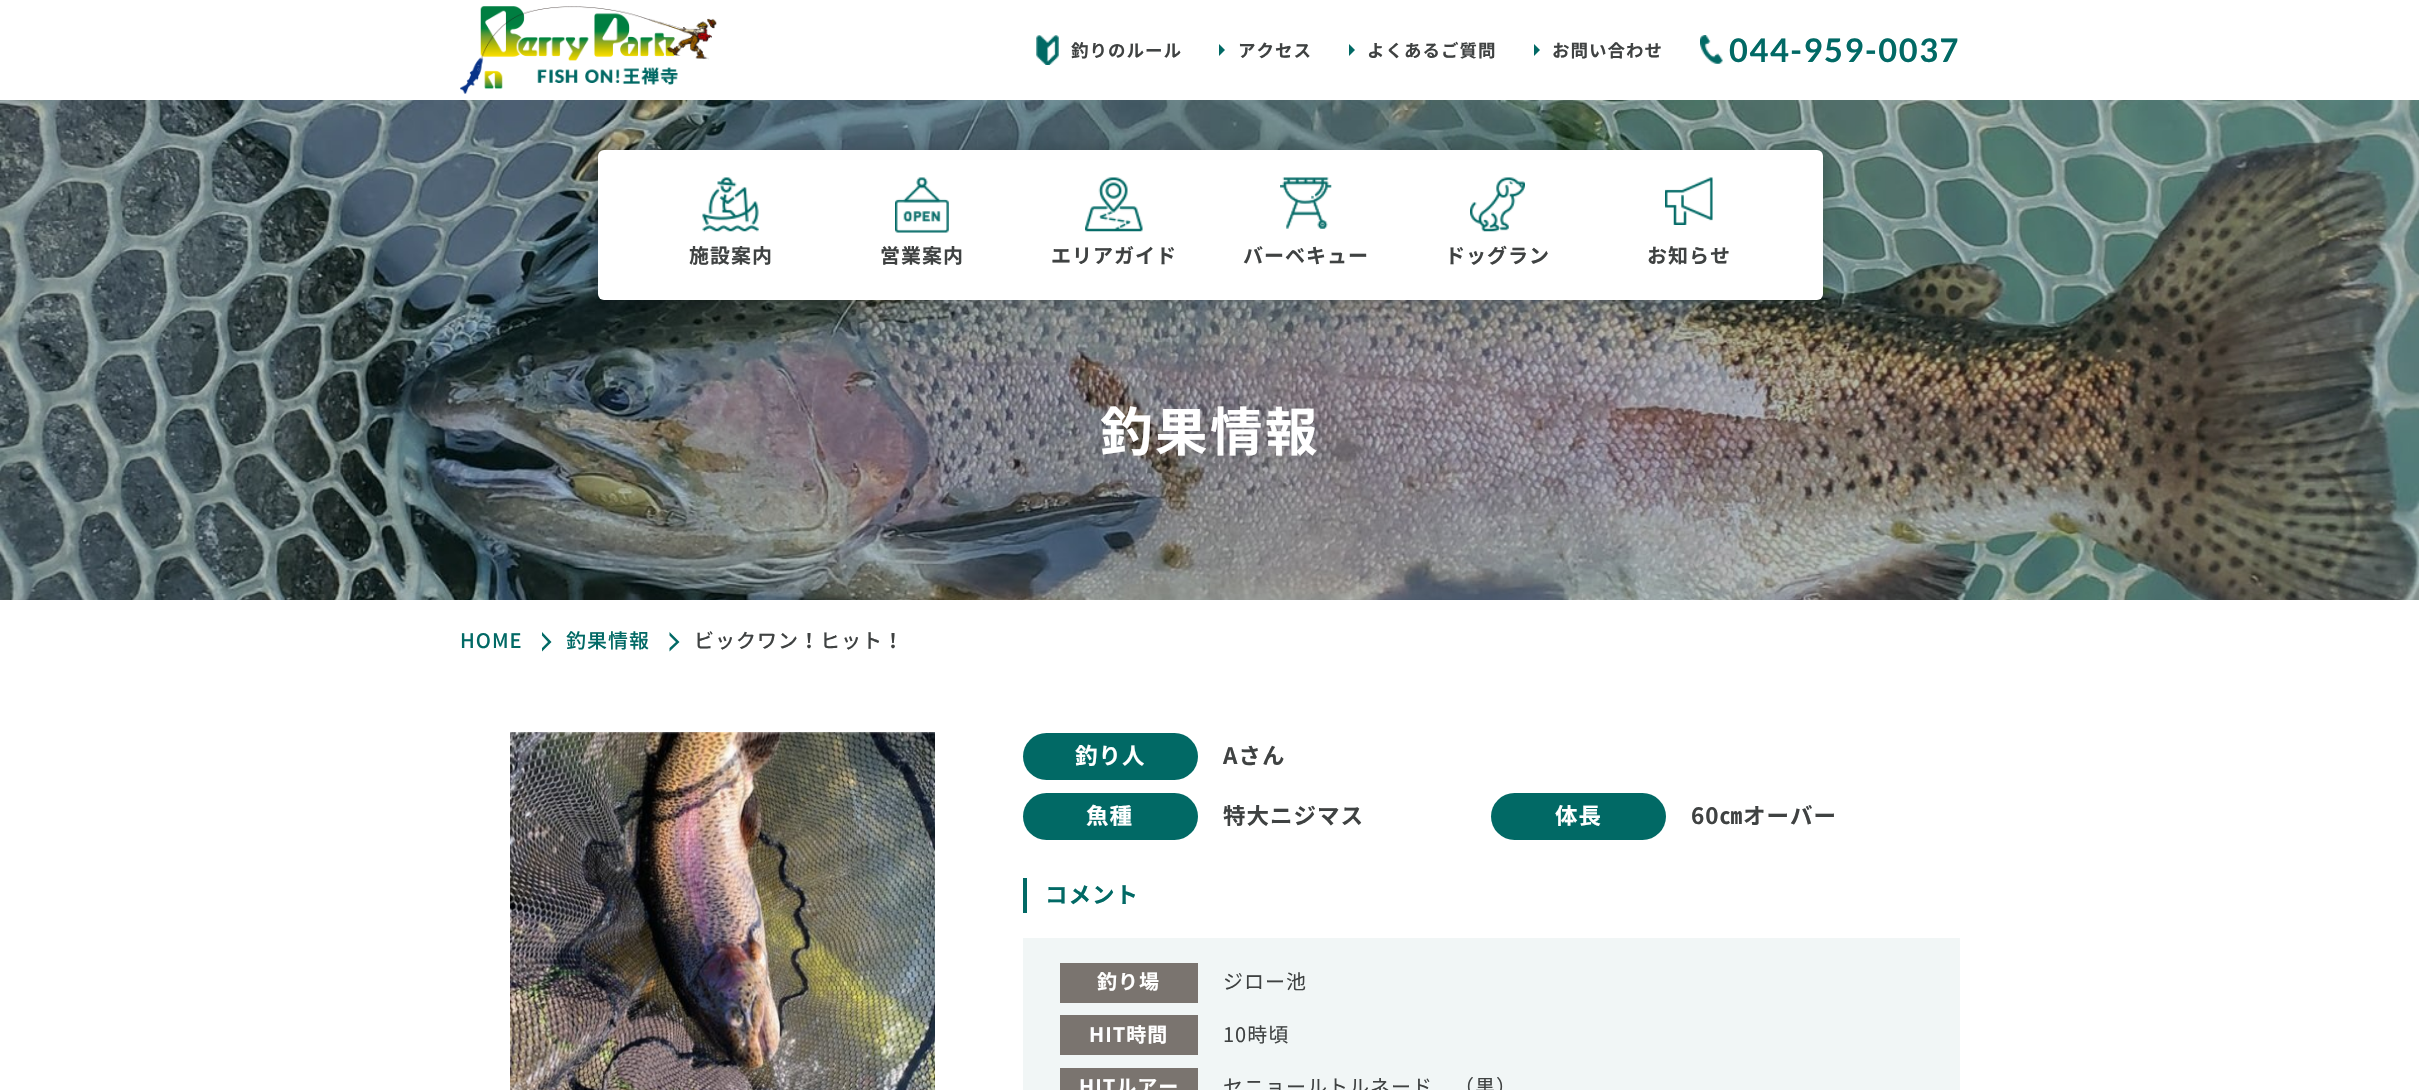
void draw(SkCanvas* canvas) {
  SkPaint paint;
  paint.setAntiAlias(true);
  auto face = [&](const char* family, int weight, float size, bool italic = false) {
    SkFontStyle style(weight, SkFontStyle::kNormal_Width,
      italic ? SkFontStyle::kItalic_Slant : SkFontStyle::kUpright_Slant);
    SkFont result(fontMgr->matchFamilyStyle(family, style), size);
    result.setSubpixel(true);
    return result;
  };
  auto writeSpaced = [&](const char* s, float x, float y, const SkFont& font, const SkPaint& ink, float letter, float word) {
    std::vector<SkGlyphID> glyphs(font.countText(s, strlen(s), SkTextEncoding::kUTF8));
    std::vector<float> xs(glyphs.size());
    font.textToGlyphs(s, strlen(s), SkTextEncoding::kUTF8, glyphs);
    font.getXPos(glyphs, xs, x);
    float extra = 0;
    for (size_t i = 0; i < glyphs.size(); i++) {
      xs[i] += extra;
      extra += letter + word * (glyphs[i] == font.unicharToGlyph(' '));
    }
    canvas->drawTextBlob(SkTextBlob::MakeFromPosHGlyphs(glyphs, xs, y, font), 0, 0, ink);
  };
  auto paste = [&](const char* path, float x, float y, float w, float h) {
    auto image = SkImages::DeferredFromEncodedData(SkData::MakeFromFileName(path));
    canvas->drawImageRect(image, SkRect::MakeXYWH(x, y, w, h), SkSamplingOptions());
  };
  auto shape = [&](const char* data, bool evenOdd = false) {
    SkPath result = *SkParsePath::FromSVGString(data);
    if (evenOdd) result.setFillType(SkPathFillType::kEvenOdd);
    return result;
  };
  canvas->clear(0xffffffff);
  paste("img/1.png", 460, 6, 257, 88);
  paste("img/2.png", 1036, 35, 23, 30);
  paint.setColor(0xff016965);
  canvas->drawPath(shape("M1219 56V44L1225 50Z"), paint);
  canvas->drawPath(shape("M1349 56V44L1355 50Z"), paint);
  canvas->drawPath(shape("M1534 56V44L1540 50Z"), paint);
  paste("img/3.png", 1700, 35, 23, 29);
  paste("img/4.png", 0, 100, 2419, 500);
  paint.setColor(0x33000000);
  paint.setMaskFilter(SkMaskFilter::MakeBlur(kNormal_SkBlurStyle, 9.5f));
  canvas->drawRoundRect(SkRect::MakeXYWH(598, 150, 1225, 150), 6, 6, paint);
  paint.setMaskFilter(nullptr);
  paint.setColor(0xffffffff);
  canvas->drawRoundRect(SkRect::MakeXYWH(598, 150, 1225, 150), 6, 6, paint);
  paste("img/5.png", 702, 177, 57, 55);
  paste("img/6.png", 895, 177, 54, 56);
  paste("img/7.png", 1085, 177, 58, 55);
  paste("img/8.png", 1280, 177, 52, 52);
  paste("img/9.png", 1470, 177, 55, 55);
  paste("img/10.png", 1665, 177, 48, 48);
  paint.setColor(0xff016965);
  canvas->drawPath(shape("M542 632L551.5 642H548L542 635.5ZM551.5 642L542 651.5V648L548 642Z"), paint);
  canvas->drawPath(shape("M669.5 632L679.5 642H676L669.5 635.5ZM679.5 642L669.5 651.5V648L676 642Z"), paint);
  paste("img/11.png", 510, 732, 425, 358);
  canvas->drawRoundRect(SkRect::MakeXYWH(1023, 733, 175, 47), 23.5f, 23.5f, paint);
  canvas->drawRoundRect(SkRect::MakeXYWH(1023, 793, 175, 47), 23.5f, 23.5f, paint);
  canvas->drawRoundRect(SkRect::MakeXYWH(1491, 793, 175, 47), 23.5f, 23.5f, paint);
  {
    const struct { float x, y, w, h; SkColor color; } items[] = {
      {1023, 878, 4, 35, 0xff016965},
      {1023, 938, 937, 152, 0xfff1f6f6},
      {1060, 963, 138, 40, 0xff7a746f},
      {1060, 1015, 138, 40, 0xff7a746f},
      {1060, 1068, 138, 22, 0xff7a746f},
    };
    for (auto [x, y, w, h, color] : items) {
      paint.setColor(color);
      canvas->drawRect(SkRect::MakeXYWH(x, y, w, h), paint);
    }
  }
  auto f0 = face("Noto Sans CJK JP", 700, 17.5f);
  paint.setColor(0xff3f4242);
  {
    const struct { const char* s; float x, y; } items[] = {
      {"釣りのルール", 1071, 57},
      {"アクセス", 1238, 57},
      {"よくあるご質問", 1367, 57},
      {"お問い合わせ", 1552, 57},
    };
    for (auto [s, x, y] : items) {
      writeSpaced(s, x, y, f0, paint, 1, 0);
    }
  }
  auto f1 = face("Lato", 700, 32.5f);
  paint.setColor(0xff016965);
  writeSpaced("044-959-0037", 1729, 62, f1, paint, 1.6f, 0);
  auto f2 = face("Noto Sans CJK JP", 700, 20);
  paint.setColor(0xff3f4242);
  {
    const struct { const char* s; float x, y; } items[] = {
      {"施設案内", 689, 263},
      {"営業案内", 880, 263},
      {"エリアガイド", 1051, 263},
      {"バーベキュー", 1243, 263},
      {"ドッグラン", 1445, 263},
      {"お知らせ", 1647, 263},
    };
    for (auto [s, x, y] : items) {
      writeSpaced(s, x, y, f2, paint, 1, 0);
    }
  }
  auto f3 = face("Noto Sans CJK JP", 700, 52.5f);
  paint.setColor(0xffffffff);
  writeSpaced("釣果情報", 1100, 451, f3, paint, 2.5f, 0);
  auto f4 = face("Noto Sans CJK JP", 500, 20);
  paint.setColor(0xff016965);
  writeSpaced("HOME", 460, 648, f4, paint, 1, 0);
  writeSpaced("釣果情報", 566, 648, f4, paint, 1, 0);
  paint.setColor(0xff3f4242);
  writeSpaced("ビックワン！ヒット！", 694, 648, f4, paint, 1, 0);
  auto f5 = face("Noto Sans CJK JP", 700, 22.5f);
  paint.setColor(0xffffffff);
  writeSpaced("釣り人", 1075, 764, f5, paint, 1, 0);
  paint.setColor(0xff3f4242);
  writeSpaced("Aさん", 1223, 764, f5, paint, 1, 0);
  paint.setColor(0xffffffff);
  writeSpaced("魚種", 1086, 824, f5, paint, 1, 0);
  paint.setColor(0xff3f4242);
  writeSpaced("特大ニジマス", 1223, 824, f5, paint, 1, 0);
  paint.setColor(0xffffffff);
  writeSpaced("体長", 1555, 824, f5, paint, 1, 0);
  auto f6 = face("Noto Sans JP", 700, 22.5f);
  paint.setColor(0xff3f4242);
  writeSpaced("60㎝オーバー", 1691, 824, f6, paint, 1, 0);
  paint.setColor(0xff016965);
  writeSpaced("コメント", 1045, 903, f5, paint, 1, 0);
  paint.setColor(0xffffffff);
  writeSpaced("釣り場", 1097, 989, f2, paint, 1, 0);
  auto f7 = face("Noto Sans CJK JP", 400, 20);
  paint.setColor(0xff3f4242);
  writeSpaced("ジロー池", 1223, 989, f7, paint, 1, 0);
  paint.setColor(0xffffffff);
  writeSpaced("HIT時間", 1089, 1042, f2, paint, 1, 0);
  paint.setColor(0xff3f4242);
  writeSpaced("10時頃", 1223, 1042, f7, paint, 1, 0);
  paint.setColor(0xffffffff);
  writeSpaced("HITルアー", 1079, 1094, f2, paint, 1, 0);
  paint.setColor(0xff3f4242);
  writeSpaced("セニョールトルネード", 1223, 1094, f7, paint, 1, 0);
  writeSpaced("（黒）", 1454, 1094, f7, paint, 1, 0);
}
